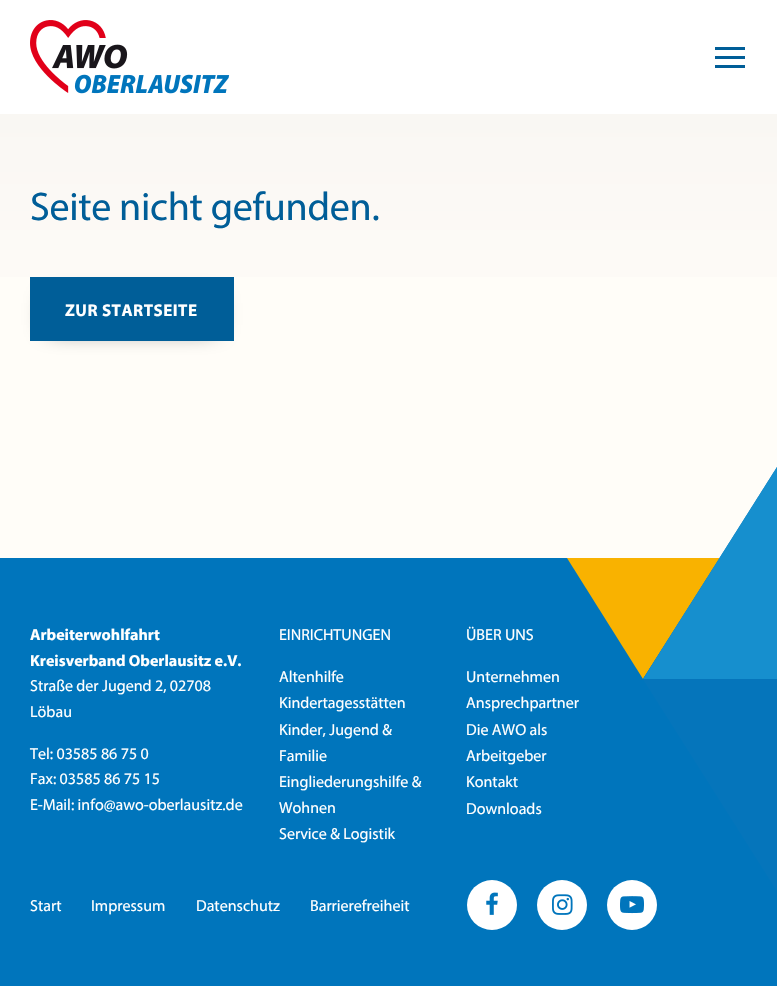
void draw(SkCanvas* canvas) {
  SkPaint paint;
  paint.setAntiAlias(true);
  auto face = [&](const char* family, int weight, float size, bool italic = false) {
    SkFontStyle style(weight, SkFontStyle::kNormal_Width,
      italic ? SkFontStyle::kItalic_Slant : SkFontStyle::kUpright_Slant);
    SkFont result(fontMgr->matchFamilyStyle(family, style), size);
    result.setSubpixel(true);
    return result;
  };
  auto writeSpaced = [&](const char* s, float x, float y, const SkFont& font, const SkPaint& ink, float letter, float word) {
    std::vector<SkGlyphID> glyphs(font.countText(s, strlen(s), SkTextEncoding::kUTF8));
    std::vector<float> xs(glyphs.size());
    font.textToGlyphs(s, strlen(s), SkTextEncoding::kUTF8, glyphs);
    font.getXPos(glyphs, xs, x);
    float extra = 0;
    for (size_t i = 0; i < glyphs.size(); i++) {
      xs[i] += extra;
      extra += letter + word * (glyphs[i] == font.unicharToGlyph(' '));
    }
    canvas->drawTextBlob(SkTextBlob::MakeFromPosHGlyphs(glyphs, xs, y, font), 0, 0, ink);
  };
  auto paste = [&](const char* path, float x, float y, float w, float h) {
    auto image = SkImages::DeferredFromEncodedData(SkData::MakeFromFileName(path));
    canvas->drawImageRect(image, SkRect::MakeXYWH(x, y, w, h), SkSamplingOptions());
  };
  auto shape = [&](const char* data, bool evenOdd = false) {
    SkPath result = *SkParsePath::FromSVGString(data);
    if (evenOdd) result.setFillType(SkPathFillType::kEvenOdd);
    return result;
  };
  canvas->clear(0xfffffdf8);
  paint.setColor(0xffffffff);
  canvas->drawRect(SkRect::MakeXYWH(0, 0, 777, 114), paint);
  paste("img/1.png", 30, 20, 200, 74);
  {
    const struct { float x, y, w, h; SkColor color; } items[] = {
      {715, 56, 30, 3, 0xff005e98},
      {715, 47, 30, 3, 0xff005e98},
      {715, 65, 30, 3, 0xff005e98},
    };
    for (auto [x, y, w, h, color] : items) {
      paint.setColor(color);
      canvas->drawRect(SkRect::MakeXYWH(x, y, w, h), paint);
    }
  }
  {
    const SkColor colors[] = {0xfff9f7f3, 0xfffffcf8};
    const float stops[] = {0, 1};
    const SkPoint ends[] = {{389, 114}, {389, 347}};
    paint.setShader(SkGradientShader::MakeLinear(ends, colors, stops, 2, SkTileMode::kClamp));
    paint.setAlpha(255);
  }
  canvas->drawRect(SkRect::MakeXYWH(0, 114, 777, 163), paint);
  paint.setShader(nullptr);
  paint.setColor(0xf2000000);
  paint.setMaskFilter(SkMaskFilter::MakeBlur(kNormal_SkBlurStyle, 12.5f));
  canvas->drawRect(SkRect::MakeXYWH(50, 302, 164, 24), paint);
  paint.setMaskFilter(nullptr);
  paint.setColor(0xff005e98);
  canvas->drawRect(SkRect::MakeXYWH(30, 277, 204, 64), paint);
  paint.setColor(0xff0075bc);
  canvas->drawRect(SkRect::MakeXYWH(0, 558, 777, 428), paint);
  paint.setColor(0xfff9b200);
  canvas->drawPath(shape("M567 558H720L643 679Z", true), paint);
  paint.setColor(0xff0575bb);
  canvas->drawPath(shape("M777 467V891L643 679Z", true), paint);
  paint.setColor(0xff168fce);
  canvas->drawPath(shape("M643 679L777 467V679Z", true), paint);
  paint.setColor(0xffffffff);
  canvas->drawCircle(492, 905, 25, paint);
  paste("img/2.png", 486, 892, 12, 23);
  canvas->drawCircle(562, 905, 25, paint);
  paste("img/3.png", 552, 894, 21, 21);
  canvas->drawCircle(632, 905, 25, paint);
  paste("img/4.png", 620, 896, 24, 18);
  auto f0 = face("Myriad", 400, 40);
  paint.setColor(0xff005e98);
  writeSpaced("Seite nicht gefunden.", 30, 220, f0, paint, -0.3f, 0);
  auto f1 = face("Myriad", 700, 17);
  paint.setColor(0xffffffff);
  writeSpaced("ZUR STARTSEITE", 65, 316, f1, paint, 0.5f, 0);
  auto f2 = face("Myriad", 700, 16);
  canvas->drawString("Arbeiterwohlfahrt", 30, 640, f2, paint);
  canvas->drawString("Kreisverband Oberlausitz e.V.", 30, 666, f2, paint);
  auto f3 = face("Myriad", 400, 16);
  {
    const struct { const char* s; float x, y; } items[] = {
      {"Straße der Jugend 2, 02708", 30, 691},
      {"Löbau", 30, 717},
      {"Tel: 03585 86 75 0", 30, 759},
      {"Fax: 03585 86 75 15", 30, 784},
      {"E-Mail: info@awo-oberlausitz.de", 30, 810},
      {"EINRICHTUNGEN", 279, 640},
      {"Altenhilfe", 279, 682},
      {"Kindertagesstätten", 279, 708},
      {"Kinder, Jugend &", 279, 735},
      {"Familie", 279, 761},
      {"Eingliederungshilfe &", 279, 787},
      {"Wohnen", 279, 813},
      {"Service & Logistik", 279, 839},
      {"ÜBER UNS", 466, 640},
      {"Unternehmen", 466, 682},
      {"Ansprechpartner", 466, 708},
      {"Die AWO als", 466, 735},
      {"Arbeitgeber", 466, 761},
      {"Kontakt", 466, 787},
      {"Downloads", 466, 814},
      {"Start", 30, 911},
      {"Impressum", 91, 911},
      {"Datenschutz", 196, 911},
      {"Barrierefreiheit", 310, 911},
    };
    for (auto [s, x, y] : items) {
      canvas->drawString(s, x, y, f3, paint);
    }
  }
}
